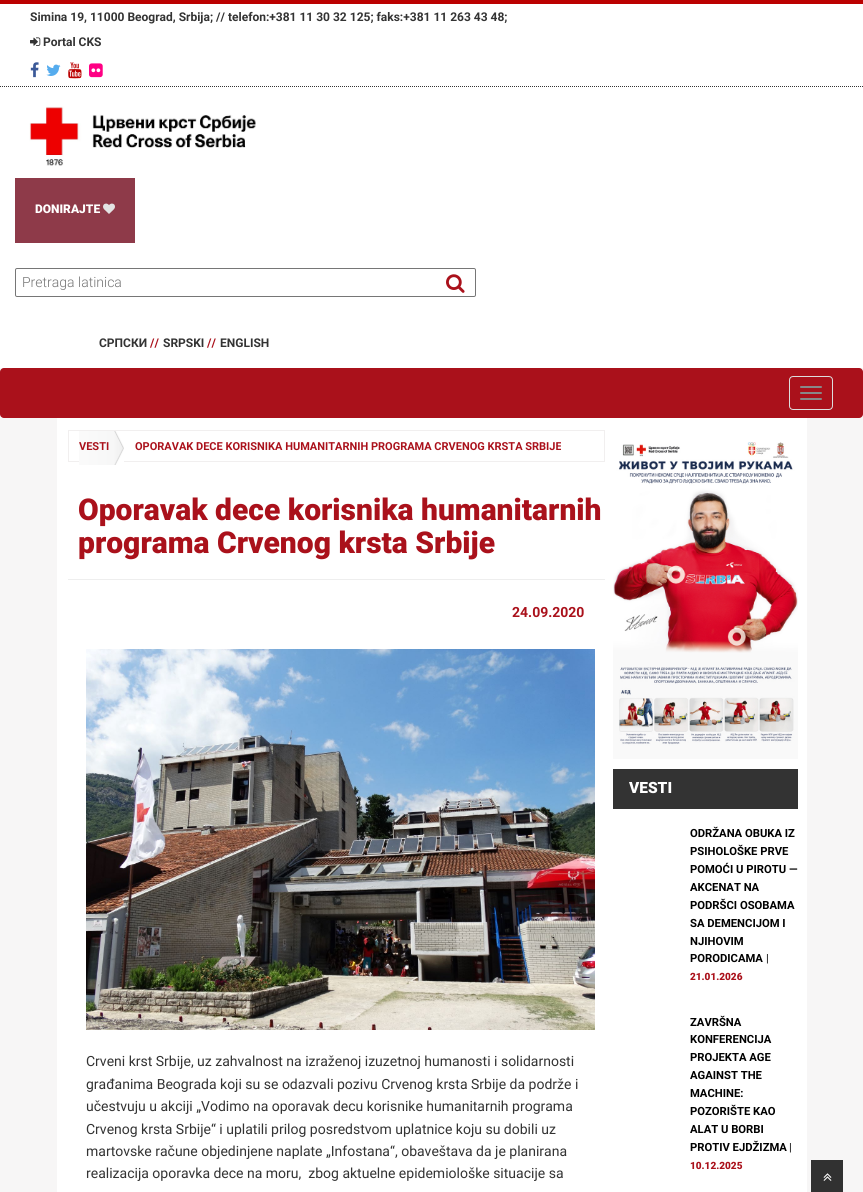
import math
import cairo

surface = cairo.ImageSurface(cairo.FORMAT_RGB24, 863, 1192)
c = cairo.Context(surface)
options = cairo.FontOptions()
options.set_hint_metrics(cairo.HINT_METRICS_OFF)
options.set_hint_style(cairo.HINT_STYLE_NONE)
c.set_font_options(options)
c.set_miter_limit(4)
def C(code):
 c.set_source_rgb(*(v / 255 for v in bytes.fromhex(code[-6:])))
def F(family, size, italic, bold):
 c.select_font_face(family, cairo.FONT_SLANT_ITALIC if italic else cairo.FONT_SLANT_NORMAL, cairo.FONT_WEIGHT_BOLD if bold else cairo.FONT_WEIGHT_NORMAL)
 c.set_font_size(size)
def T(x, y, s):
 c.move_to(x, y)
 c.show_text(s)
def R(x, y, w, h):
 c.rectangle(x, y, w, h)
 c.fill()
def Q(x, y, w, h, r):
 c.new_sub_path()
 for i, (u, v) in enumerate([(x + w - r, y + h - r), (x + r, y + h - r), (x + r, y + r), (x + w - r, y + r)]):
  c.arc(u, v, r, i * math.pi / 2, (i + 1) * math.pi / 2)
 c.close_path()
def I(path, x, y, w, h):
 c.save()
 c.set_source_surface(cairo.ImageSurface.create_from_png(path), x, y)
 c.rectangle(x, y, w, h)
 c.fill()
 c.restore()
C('f7f6f6')
c.paint()
C('ffffff')
R(0,4,863,364)
C('bb0000')
R(0,0,863,4)
c.new_path()
c.move_to(0,86.5)
c.line_to(863,86.5)
C('333333')
c.set_line_width(1)
c.set_dash([1,1])
c.stroke()
F('Roboto',12,0,1)
T(30,21,'Simina 19, 11000 Beograd, Srbija; // telefon:+381 11 30 32 125; faks:+381 11 263 43 48;')
I('1.png',30,37,11,9)
T(43,46,'Portal CKS')
I('2.png',30,62,9,16)
I('3.png',46,64,15,12)
I('4.png',68,62,14,17)
I('5.png',89,63,14,15)
I('6.png',29,106,227,60)
C('8e3a49')
R(15,178,120,65)
F('Roboto Black',12,0,0)
C('ffffff')
T(35,213,'DONIRAJTE')
I('7.png',103,203,12,11)
Q(15.5,268.5,460,28,1.5)
C('767676')
c.set_dash([])
c.stroke()
F('Roboto Light',14,0,0)
C('757575')
T(22,287,'Pretraga latinica')
I('8.png',446,274,19,19)
F('Roboto',12,0,1)
C('333333')
T(99,347,'СРПСКИ')
C('aa111b')
T(150,347,'//')
C('333333')
T(163,347,'SRPSKI')
C('aa111b')
T(207,347,'//')
C('333333')
T(220,347,'ENGLISH')
C('aa111b')
Q(0,368,863,50,4)
c.fill()
Q(789.5,376.5,43,33,3.5)
C('dddddd')
c.stroke()
C('888888')
Q(800,386,22,2,1)
c.fill()
Q(800,392,22,2,1)
c.fill()
Q(800,398,22,2,1)
c.fill()
C('ffffff')
R(57,418,750,774)
c.rectangle(68.5,430.5,536,31)
C('f1efef')
c.stroke()
I('9.png',79,431,45,34)
F('Roboto',11,0,1)
C('aa111b')
T(79,450,'VESTI')
T(135,450,'OPORAVAK DECE KORISNIKA HUMANITARNIH PROGRAMA CRVENOG KRSTA SRBIJE')
F('Roboto Black',30,0,0)
T(78,520,'Oporavak dece korisnika humanitarnih')
T(78,553,'programa Crvenog krsta Srbije')
C('eeeeee')
R(68,579,537,1)
F('Roboto',14,0,1)
C('aa111b')
T(512,617,'24.09.2020')
I('10.png',86,649,509,381)
F('Roboto',14,0,0)
C('333333')
T(86,1066,'Crveni krst Srbije, uz zahvalnost na izraženoj izuzetnoj humanosti i solidarnosti')
T(86,1089,'građanima Beograda koji su se odazvali pozivu Crvenog krsta Srbije da podrže i')
T(86,1111,'učestvuju u akciji „Vodimo na oporavak decu korisnike humanitarnih programa')
T(86,1134,'Crvenog krsta Srbije“ i uplatili prilog posredstvom uplatnice koju su dobili uz')
T(86,1156,'martovske račune objedinjene naplate „Infostana“, obaveštava da je planirana')
T(86,1178,'realizacija oporavka dece na moru,  zbog aktuelne epidemiološke situacije sa')
I('11.png',613,442,185,317)
R(613,769,185,40)
F('Roboto Black',15.5,0,0)
C('ffffff')
T(629,793,'VESTI')
F('Roboto',11.25,0,1)
C('000000')
T(690,837,'ODRŽANA OBUKA IZ')
T(690,855,'PSIHOLOŠKE PRVE')
T(690,873,'POMOĆI U PIROTU —')
T(690,891,'AKCENAT NA')
T(690,909,'PODRŠCI OSOBAMA')
T(690,927,'SA DEMENCIJOM I')
T(690,945,'NJIHOVIM')
T(690,962,'PORODICAMA')
F('Roboto Black',11.25,0,0)
C('333333')
T(766,962,'|')
F('Roboto Black',10,0,0)
C('aa111b')
T(690,980,'21.01.2026')
F('Roboto',11.25,0,1)
C('000000')
T(690,1026,'ZAVRŠNA')
T(690,1043,'KONFERENCIJA')
T(690,1061,'PROJEKTA AGE')
T(690,1079,'AGAINST THE')
T(690,1097,'MACHINE:')
T(690,1115,'POZORIŠTE KAO')
T(690,1133,'ALAT U BORBI')
T(690,1151,'PROTIV EJDŽIZMA')
F('Roboto Black',11.25,0,0)
C('333333')
T(789,1151,'|')
F('Roboto Black',10,0,0)
C('aa111b')
T(690,1169,'10.12.2025')
C('313131')
R(811,1160,32,32)
I('12.png',823,1173,9,8)
surface.write_to_png('o.png')
